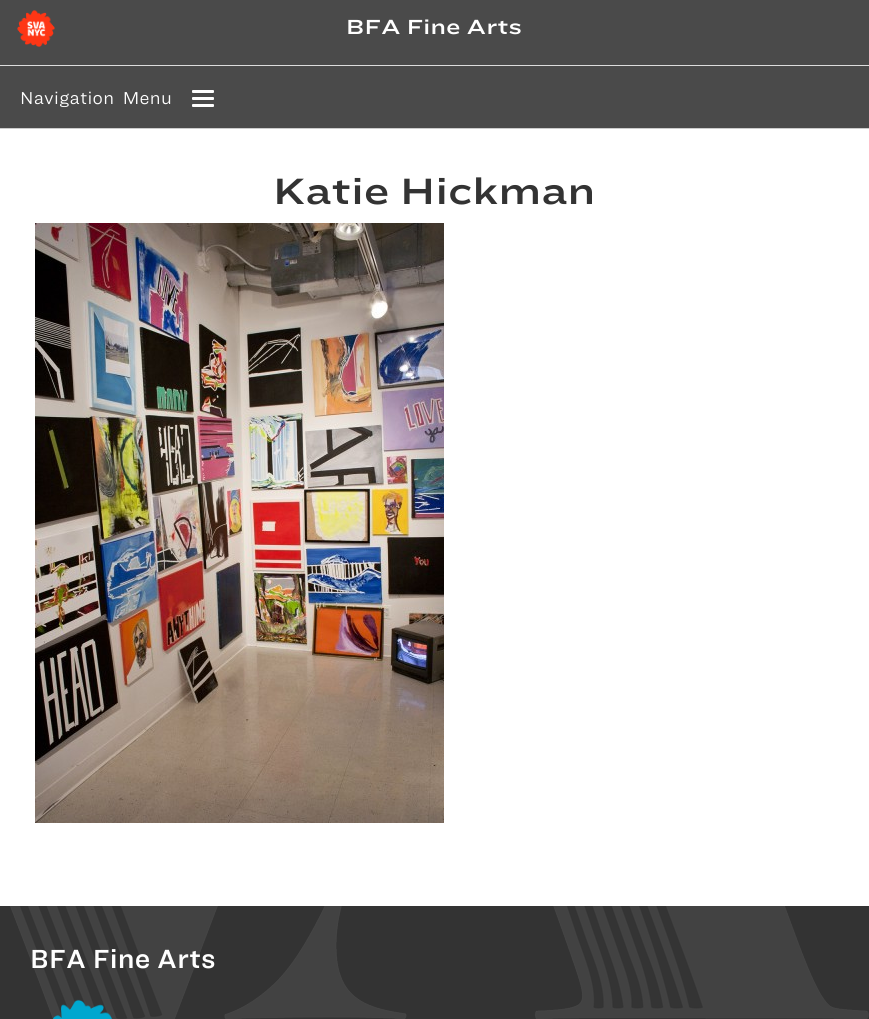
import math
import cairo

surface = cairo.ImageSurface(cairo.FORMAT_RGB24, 869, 1019)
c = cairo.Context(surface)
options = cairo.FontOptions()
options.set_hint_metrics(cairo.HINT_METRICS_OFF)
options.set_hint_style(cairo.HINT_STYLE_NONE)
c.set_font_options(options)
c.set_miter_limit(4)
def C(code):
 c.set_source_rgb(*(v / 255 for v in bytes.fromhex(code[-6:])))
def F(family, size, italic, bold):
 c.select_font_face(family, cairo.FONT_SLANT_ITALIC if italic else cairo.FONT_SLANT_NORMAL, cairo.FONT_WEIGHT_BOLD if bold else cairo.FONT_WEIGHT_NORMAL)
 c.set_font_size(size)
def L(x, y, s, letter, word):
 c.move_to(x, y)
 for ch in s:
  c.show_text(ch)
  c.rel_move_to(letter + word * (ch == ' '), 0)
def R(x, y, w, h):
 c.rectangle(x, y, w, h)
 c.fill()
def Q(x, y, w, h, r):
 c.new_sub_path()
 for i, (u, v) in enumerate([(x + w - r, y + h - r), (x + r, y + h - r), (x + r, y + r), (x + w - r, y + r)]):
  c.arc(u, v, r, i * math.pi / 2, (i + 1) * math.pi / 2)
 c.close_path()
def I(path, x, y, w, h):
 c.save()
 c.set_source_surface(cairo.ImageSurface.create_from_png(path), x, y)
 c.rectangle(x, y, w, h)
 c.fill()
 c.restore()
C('ffffff')
c.paint()
C('4a4a4a')
R(0,0,869,65)
I('1.png',17,10,38,37)
F('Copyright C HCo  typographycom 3 Light',19.5,0,0)
C('ffffff')
L(346,34,'BFA Fine Arts',.25,0)
C('dddddd')
R(0,65,869,1)
C('4a4a4a')
R(0,66,869,62)
C('cccccc')
R(0,128,869,1)
F('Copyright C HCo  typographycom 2 Light',16.5,0,0)
C('ffffff')
L(20,104,'Navigation Menu',.25,4)
Q(192,90,22,3,1)
c.fill()
Q(192,97,22,3,1)
c.fill()
Q(192,104,22,3,1)
c.fill()
F('Copyright C HCo  typographycom 3 Light',35,0,0)
C('333333')
L(273,204,'Katie Hickman',.25,0)
I('2.png',35,223,409,600)
R(0,906,869,113)
I('3.png',10,906,859,113)
F('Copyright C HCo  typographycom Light',25,0,0)
C('ffffff')
L(30,968,'BFA Fine Arts',.25,0)
I('4.png',53,999,59,20)
surface.write_to_png('o.png')
